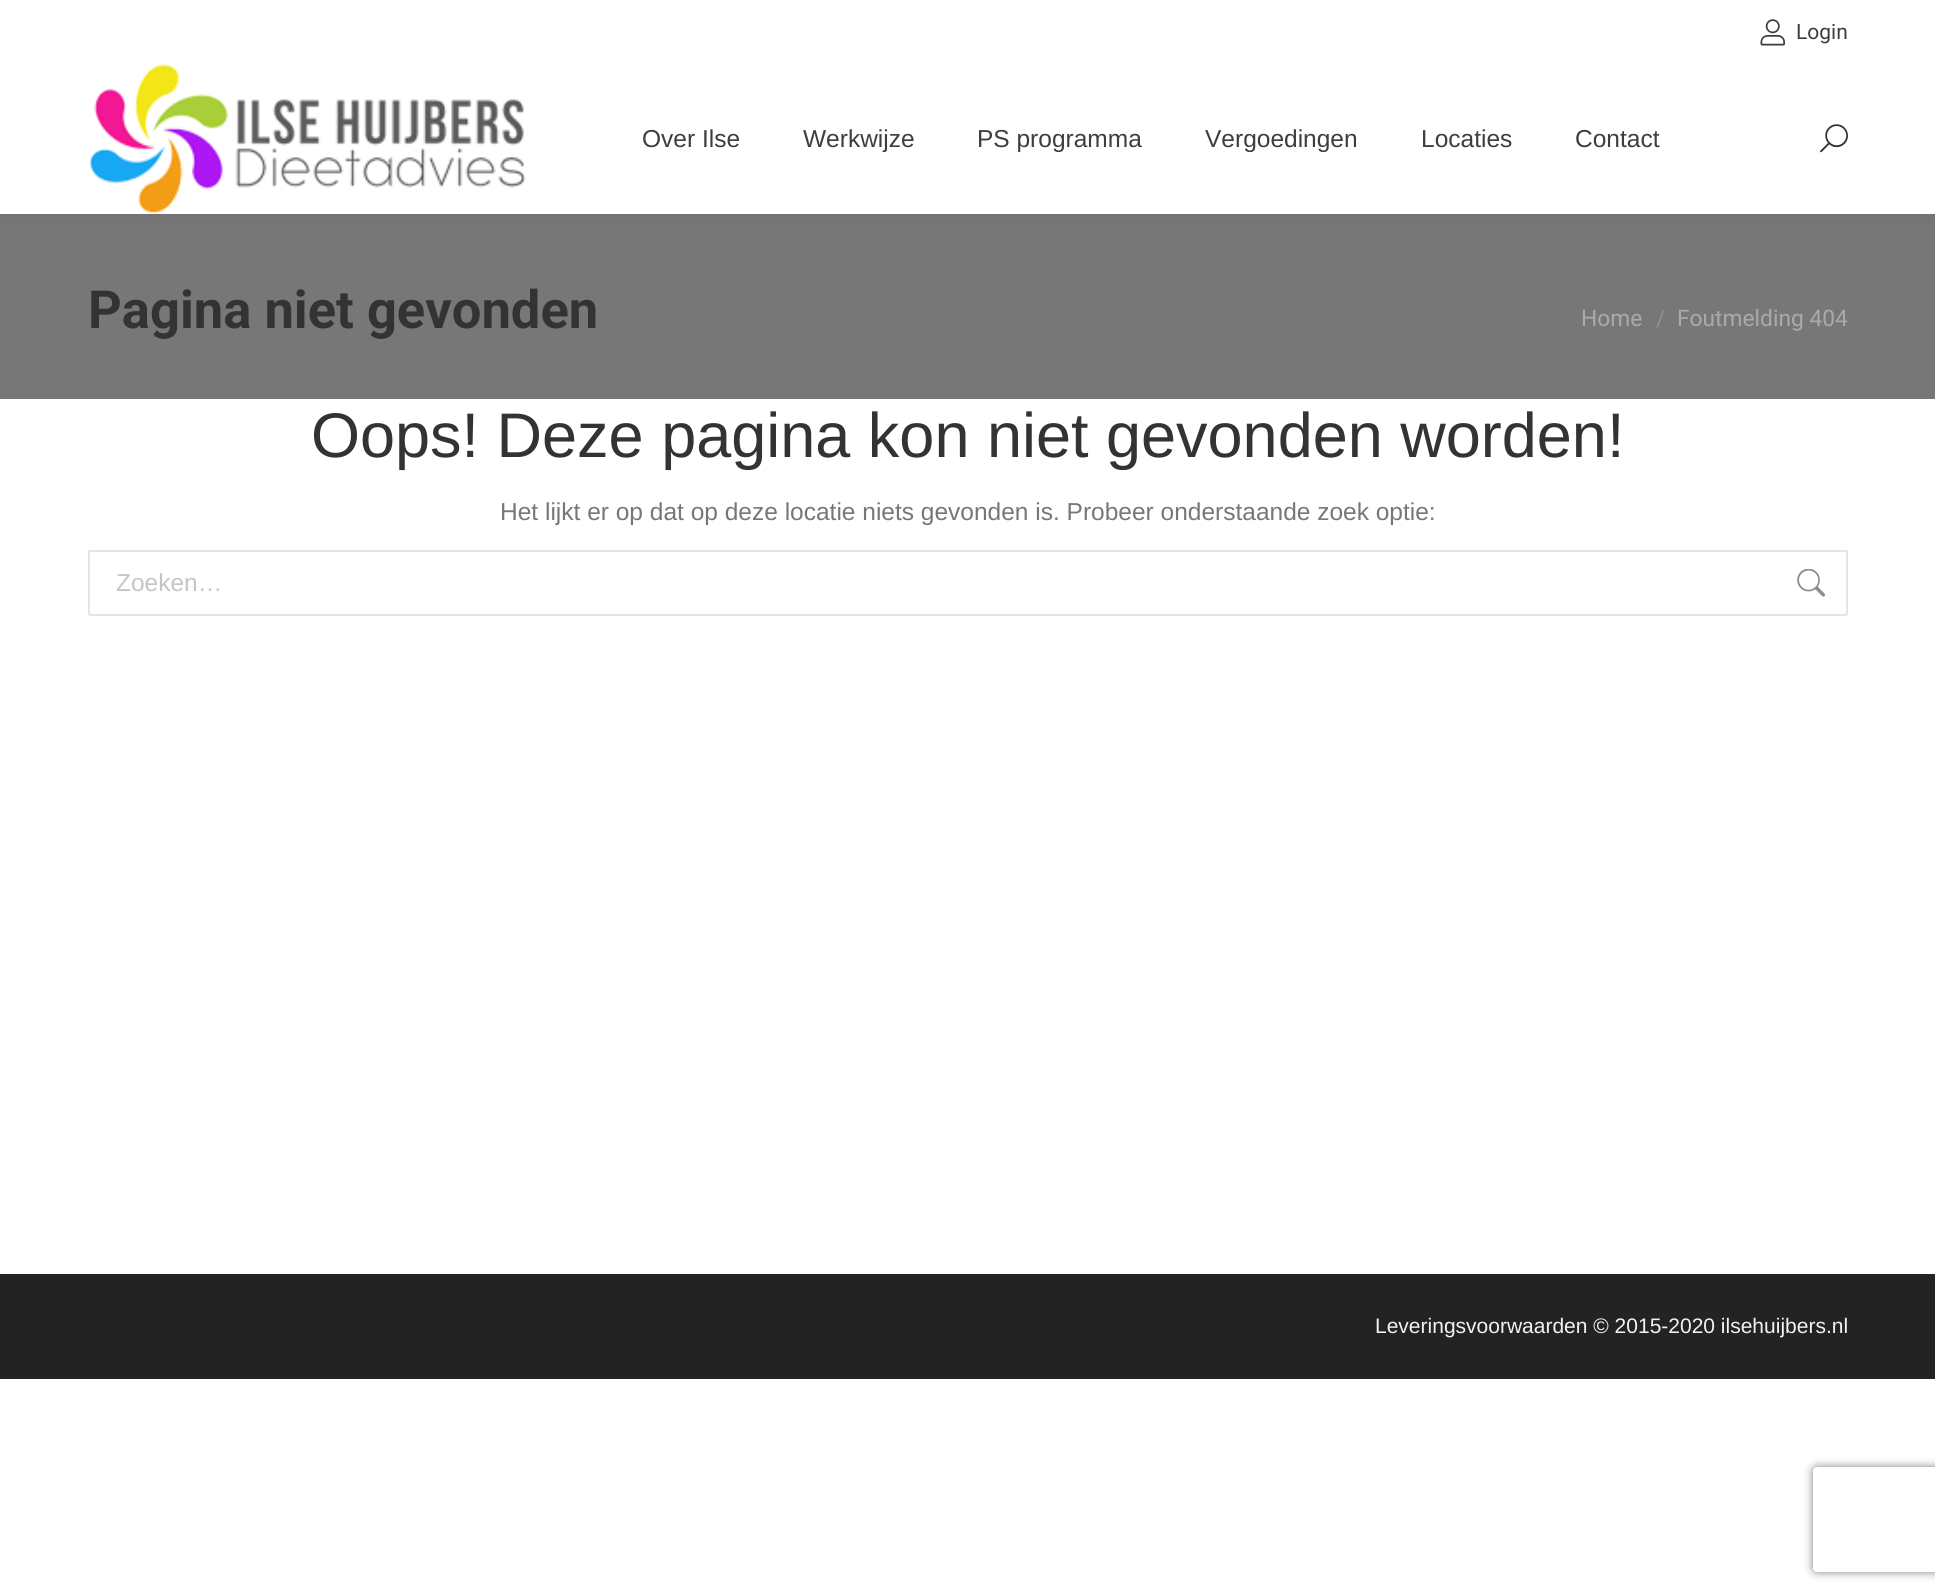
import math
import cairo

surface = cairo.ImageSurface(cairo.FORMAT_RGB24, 1935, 1596)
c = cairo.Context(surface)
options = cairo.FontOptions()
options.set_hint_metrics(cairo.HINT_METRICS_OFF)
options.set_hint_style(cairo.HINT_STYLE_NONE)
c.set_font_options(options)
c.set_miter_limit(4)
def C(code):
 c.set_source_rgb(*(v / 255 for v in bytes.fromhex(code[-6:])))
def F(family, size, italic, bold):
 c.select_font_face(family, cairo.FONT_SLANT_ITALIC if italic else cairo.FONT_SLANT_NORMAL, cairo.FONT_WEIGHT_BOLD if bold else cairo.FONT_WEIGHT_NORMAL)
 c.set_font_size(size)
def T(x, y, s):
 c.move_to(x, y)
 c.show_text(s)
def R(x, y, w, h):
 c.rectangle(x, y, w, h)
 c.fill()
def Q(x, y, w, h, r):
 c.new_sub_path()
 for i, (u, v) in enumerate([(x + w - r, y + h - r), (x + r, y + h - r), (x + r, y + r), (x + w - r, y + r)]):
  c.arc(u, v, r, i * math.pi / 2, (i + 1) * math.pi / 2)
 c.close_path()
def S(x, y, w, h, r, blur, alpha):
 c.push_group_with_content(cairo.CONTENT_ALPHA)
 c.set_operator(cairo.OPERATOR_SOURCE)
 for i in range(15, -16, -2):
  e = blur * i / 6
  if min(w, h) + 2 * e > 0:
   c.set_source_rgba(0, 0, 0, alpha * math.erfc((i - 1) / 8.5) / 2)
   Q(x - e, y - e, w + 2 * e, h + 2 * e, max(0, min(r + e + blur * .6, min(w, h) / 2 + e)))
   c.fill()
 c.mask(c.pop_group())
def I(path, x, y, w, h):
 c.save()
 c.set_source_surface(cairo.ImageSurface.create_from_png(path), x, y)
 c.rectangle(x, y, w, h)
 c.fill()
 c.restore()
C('ffffff')
c.paint()
C('777777')
R(0,214,1935,185)
C('000000')
S(-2,-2,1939,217,0,13,.07)
C('ffffff')
R(0,0,1935,214)
I('1.png',1760,19,25,27)
F('Roboto',21,0,0)
C('3e3e3e')
T(1796,39,'Login')
I('2.png',89,64,436,150)
F('Arimo',24.5,0,0)
T(642,147,'Over Ilse')
T(803,147,'Werkwijze')
T(977,147,'PS programma')
T(1205,147,'Vergoedingen')
T(1421,147,'Locaties')
T(1575,147,'Contact')
I('3.png',1820,124,28,29)
F('Roboto',52.5,0,1)
C('333333')
T(88,328,'Pagina niet gevonden')
F('Roboto',22.75,0,0)
C('aaaaaa')
T(1581,326,'Home')
C('919191')
T(1656,326,'/')
C('aaaaaa')
T(1677,326,'Foutmelding 404')
F('Arimo',63,0,0)
C('333333')
T(311,457,'Oops! Deze pagina kon niet gevonden worden!')
F('Arimo',24.5,0,0)
C('777777')
T(500,520,'Het lijkt er op dat op deze locatie niets gevonden is. Probeer onderstaande zoek optie:')
Q(89,551,1758,64,1)
C('e5e5e5')
c.stroke()
C('c4c5c9')
T(116,591,'Zoeken…')
I('4.png',1797,569,28,28)
C('232323')
R(0,1274,1935,105)
F('Arimo',21,0,0)
C('f2f2f2')
T(1375,1333,'Leveringsvoorwaarden © 2015-2020 ilsehuijbers.nl')
c.save()
c.set_fill_rule(cairo.FILL_RULE_EVEN_ODD)
c.new_path()
c.move_to(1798,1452)
c.line_to(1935,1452)
c.line_to(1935,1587)
c.line_to(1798,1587)
c.close_path()
c.move_to(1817,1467)
c.line_to(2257,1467)
c.curve_to(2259,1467,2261,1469,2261,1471)
c.line_to(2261,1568)
c.curve_to(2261,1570,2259,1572,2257,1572)
c.line_to(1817,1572)
c.curve_to(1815,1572,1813,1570,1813,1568)
c.line_to(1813,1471)
c.curve_to(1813,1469,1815,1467,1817,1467)
c.close_path()
c.clip()
C('808080')
S(1813,1467,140,105,4,4.5,1)
c.restore()
surface.write_to_png('o.png')
